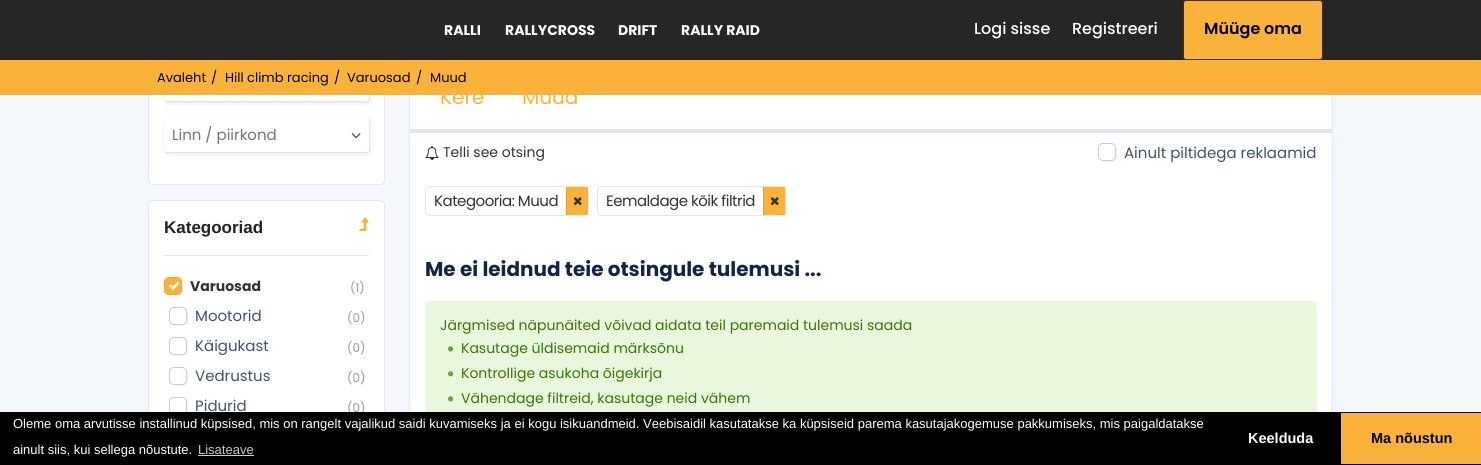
import math
import cairo

surface = cairo.ImageSurface(cairo.FORMAT_RGB24, 1481, 465)
c = cairo.Context(surface)
options = cairo.FontOptions()
options.set_hint_metrics(cairo.HINT_METRICS_OFF)
options.set_hint_style(cairo.HINT_STYLE_NONE)
c.set_font_options(options)
c.set_miter_limit(4)
def C(code):
 c.set_source_rgb(*(v / 255 for v in bytes.fromhex(code[-6:])))
def F(family, size, italic, bold):
 c.select_font_face(family, cairo.FONT_SLANT_ITALIC if italic else cairo.FONT_SLANT_NORMAL, cairo.FONT_WEIGHT_BOLD if bold else cairo.FONT_WEIGHT_NORMAL)
 c.set_font_size(size)
def T(x, y, s):
 c.move_to(x, y)
 c.show_text(s)
def L(x, y, s, letter, word):
 c.move_to(x, y)
 for ch in s:
  c.show_text(ch)
  c.rel_move_to(letter + word * (ch == ' '), 0)
def R(x, y, w, h):
 c.rectangle(x, y, w, h)
 c.fill()
def Q(x, y, w, h, r):
 c.new_sub_path()
 for i, (u, v) in enumerate([(x + w - r, y + h - r), (x + r, y + h - r), (x + r, y + r), (x + w - r, y + r)]):
  c.arc(u, v, r, i * math.pi / 2, (i + 1) * math.pi / 2)
 c.close_path()
def S(x, y, w, h, r, blur, alpha):
 c.push_group_with_content(cairo.CONTENT_ALPHA)
 c.set_operator(cairo.OPERATOR_SOURCE)
 for i in range(15, -16, -2):
  e = blur * i / 6
  if min(w, h) + 2 * e > 0:
   c.set_source_rgba(0, 0, 0, alpha * math.erfc((i - 1) / 8.5) / 2)
   Q(x - e, y - e, w + 2 * e, h + 2 * e, max(0, min(r + e + blur * .6, min(w, h) / 2 + e)))
   c.fill()
 c.mask(c.pop_group())
def I(path, x, y, w, h):
 c.save()
 c.set_source_surface(cairo.ImageSurface.create_from_png(path), x, y)
 c.rectangle(x, y, w, h)
 c.fill()
 c.restore()
C('f4f7fb')
c.paint()
C('ffffff')
Q(148,-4,237,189,5)
c.fill()
Q(148.5,-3.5,236,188,4.5)
c.set_source_rgba(0,0,0,0.1)
c.set_line_width(1)
c.stroke()
C('ffffff')
R(410,95,922,317)
c.rectangle(409.5,-.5,923,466)
C('e5e5e5')
c.stroke()
C('262626')
R(0,0,1481,60)
F('Poppins',14,0,1)
C('ffffff')
T(444,35,'RALLI')
T(505,35,'RALLYCROSS')
T(618,35,'DRIFT')
T(681,35,'RALLY RAID')
F('Poppins Medium',16,0,0)
T(974,34,'Logi sisse')
T(1072,34,'Registreeri')
C('fab23a')
Q(1183.5,.5,139,59,2.5)
c.fill_preserve()
C('333333')
c.stroke()
F('Poppins SemiBold',16,0,0)
C('000000')
T(1204,34,'Müüge oma')
C('000000')
S(165,69,205,34,3,2.5,.1)
Q(164.25,67.25,205.5,34.5,3.75)
c.set_source_rgba(0,0,0,0.1)
c.set_line_width(.5)
c.stroke()
C('ffffff')
Q(164,67,205,34,3)
c.fill()
C('fab23a')
R(0,60,1481,35)
F('Poppins',13,0,0)
C('000000')
T(157,82,'Avaleht')
T(211,82,'/')
T(225,82,'Hill climb racing')
T(334,82,'/')
T(347,82,'Varuosad')
T(416,82,'/')
T(430,82,'Muud')
C('000000')
S(165,120,205,34,3,2.5,.1)
Q(164.25,118.25,205.5,34.5,3.75)
c.set_source_rgba(0,0,0,0.1)
c.stroke()
C('ffffff')
Q(164,118,205,34,3)
c.fill()
F('Poppins',15,0,0)
C('757575')
T(172,140,'Linn / piirkond')
I('1.png',351,133,10,6)
C('ffffff')
Q(148,200,237,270,5)
c.fill()
Q(148.5,200.5,236,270,4.5)
c.set_source_rgba(0,0,0,0.1)
c.set_line_width(1)
c.stroke()
C('e6e6e6')
R(164,255,205,1)
F('Liberation Sans',17,0,1)
C('222222')
T(164,233,'Kategooriad')
I('2.png',359,217,10,14)
C('000000')
S(165,278,18,18,5,.5,.06)
C('fab23a')
Q(164,277,18,18,5)
c.fill()
c.rectangle(164.5,277.5,17,17)
c.set_source_rgba(0,0,0,0.05)
c.stroke()
F('Poppins',14,0,1)
C('333333')
T(190,291,'Varuosad')
F('Poppins',12,0,0)
C('999999')
T(350,292,'(1)')
I('3.png',168,282,12,8)
c.save()
c.set_fill_rule(cairo.FILL_RULE_EVEN_ODD)
c.new_path()
c.move_to(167,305)
c.line_to(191,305)
c.line_to(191,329)
c.line_to(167,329)
c.close_path()
c.move_to(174,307)
c.line_to(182,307)
c.curve_to(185,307,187,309,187,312)
c.line_to(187,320)
c.curve_to(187,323,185,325,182,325)
c.line_to(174,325)
c.curve_to(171,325,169,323,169,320)
c.line_to(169,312)
c.curve_to(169,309,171,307,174,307)
c.close_path()
c.clip()
C('000000')
S(170,308,18,18,5,.5,.06)
c.restore()
Q(169.5,307.5,17,17,4.5)
C('cccccc')
c.stroke()
F('Poppins',15,0,0)
C('435269')
T(195,321,'Mootorid')
F('Poppins',12,0,0)
C('999999')
T(347,322,'(0)')
c.save()
c.set_fill_rule(cairo.FILL_RULE_EVEN_ODD)
c.new_path()
c.move_to(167,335)
c.line_to(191,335)
c.line_to(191,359)
c.line_to(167,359)
c.close_path()
c.move_to(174,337)
c.line_to(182,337)
c.curve_to(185,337,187,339,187,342)
c.line_to(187,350)
c.curve_to(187,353,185,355,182,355)
c.line_to(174,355)
c.curve_to(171,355,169,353,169,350)
c.line_to(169,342)
c.curve_to(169,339,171,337,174,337)
c.close_path()
c.clip()
C('000000')
S(170,338,18,18,5,.5,.06)
c.restore()
Q(169.5,337.5,17,17,4.5)
C('cccccc')
c.stroke()
F('Poppins',15,0,0)
C('435269')
T(195,351,'Käigukast')
F('Poppins',12,0,0)
C('999999')
T(347,352,'(0)')
c.save()
c.set_fill_rule(cairo.FILL_RULE_EVEN_ODD)
c.new_path()
c.move_to(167,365)
c.line_to(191,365)
c.line_to(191,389)
c.line_to(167,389)
c.close_path()
c.move_to(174,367)
c.line_to(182,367)
c.curve_to(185,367,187,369,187,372)
c.line_to(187,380)
c.curve_to(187,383,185,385,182,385)
c.line_to(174,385)
c.curve_to(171,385,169,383,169,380)
c.line_to(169,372)
c.curve_to(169,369,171,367,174,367)
c.close_path()
c.clip()
C('000000')
S(170,368,18,18,5,.5,.06)
c.restore()
Q(169.5,367.5,17,17,4.5)
C('cccccc')
c.stroke()
F('Poppins',15,0,0)
C('435269')
T(195,381,'Vedrustus')
F('Poppins',12,0,0)
C('999999')
T(347,382,'(0)')
c.save()
c.set_fill_rule(cairo.FILL_RULE_EVEN_ODD)
c.new_path()
c.move_to(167,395)
c.line_to(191,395)
c.line_to(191,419)
c.line_to(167,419)
c.close_path()
c.move_to(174,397)
c.line_to(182,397)
c.curve_to(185,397,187,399,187,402)
c.line_to(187,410)
c.curve_to(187,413,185,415,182,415)
c.line_to(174,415)
c.curve_to(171,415,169,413,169,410)
c.line_to(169,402)
c.curve_to(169,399,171,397,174,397)
c.close_path()
c.clip()
C('000000')
S(170,398,18,18,5,.5,.06)
c.restore()
Q(169.5,397.5,17,17,4.5)
C('cccccc')
c.stroke()
F('Poppins',15,0,0)
C('435269')
T(195,411,'Pidurid')
F('Poppins',12,0,0)
C('999999')
T(347,412,'(0)')
F('Poppins',20,0,0)
C('fab23a')
T(440,104,'Kere')
T(522,104,'Muud')
C('dde6f1')
R(410,129,922,4)
I('4.png',425,146,14,14)
F('Poppins',14,0,0)
C('333333')
T(443,157,'Telli see otsing')
c.save()
c.set_fill_rule(cairo.FILL_RULE_EVEN_ODD)
c.new_path()
c.move_to(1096,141)
c.line_to(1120,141)
c.line_to(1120,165)
c.line_to(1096,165)
c.close_path()
c.move_to(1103,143)
c.line_to(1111,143)
c.curve_to(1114,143,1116,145,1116,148)
c.line_to(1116,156)
c.curve_to(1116,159,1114,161,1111,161)
c.line_to(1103,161)
c.curve_to(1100,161,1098,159,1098,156)
c.line_to(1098,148)
c.curve_to(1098,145,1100,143,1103,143)
c.close_path()
c.clip()
C('000000')
S(1099,144,18,18,5,.5,.06)
c.restore()
Q(1098.5,143.5,17,17,4.5)
C('cccccc')
c.stroke()
F('Poppins',15,0,0)
C('435269')
T(1124,158,'Ainult piltidega reklaamid')
Q(425.5,186.5,163,29,4.5)
C('e6e6e6')
c.stroke()
C('333333')
L(434,206,'Kategooria: Muud',-.5,0)
C('fab23a')
R(567,187,21,28)
C('e1a034')
R(566,187,1,28)
I('5.png',573,197,9,9)
Q(597.5,186.5,188,29,4.5)
C('e6e6e6')
c.stroke()
C('333333')
L(606,206,'Eemaldage kõik filtrid',-.5,0)
C('fab23a')
R(764,187,21,28)
C('e1a034')
R(763,187,1,28)
I('5.png',770,197,9,9)
F('Poppins',20,0,1)
C('142542')
T(425,276,'Me ei leidnud teie otsingule tulemusi ...')
C('e9f7df')
Q(425,301,892,151,5)
c.fill()
F('Poppins',14,0,0)
C('377800')
T(440,330,'Järgmised näpunäited võivad aidata teil paremaid tulemusi saada')
I('6.png',448,346,6,6)
T(461,353,'Kasutage üldisemaid märksõnu')
I('6.png',448,371,6,6)
T(461,378,'Kontrollige asukoha õigekirja')
I('6.png',448,396,6,6)
T(461,403,'Vähendage filtreid, kasutage neid vähem')
C('000000')
R(0,412,1481,53)
F('Liberation Sans',13,0,0)
C('ffffff')
T(13,428,'Oleme oma arvutisse installinud küpsised, mis on rangelt vajalikud saidi kuvamiseks ja ei kogu isikuandmeid. Veebisaidil kasutatakse ka küpsiseid parema kasutajakogemuse pakkumiseks, mis paigaldatakse')
T(13,454,'ainult siis, kui sellega nõustute.')
C('cccccc')
T(198,454,'Lisateave')
R(198,455,56,1)
F('Liberation Sans',14.5,0,1)
C('ffffff')
T(1248,443,'Keelduda')
C('fab23a')
R(1341,413,140,51)
C('000000')
T(1371,443,'Ma nõustun')
surface.write_to_png('o.png')
